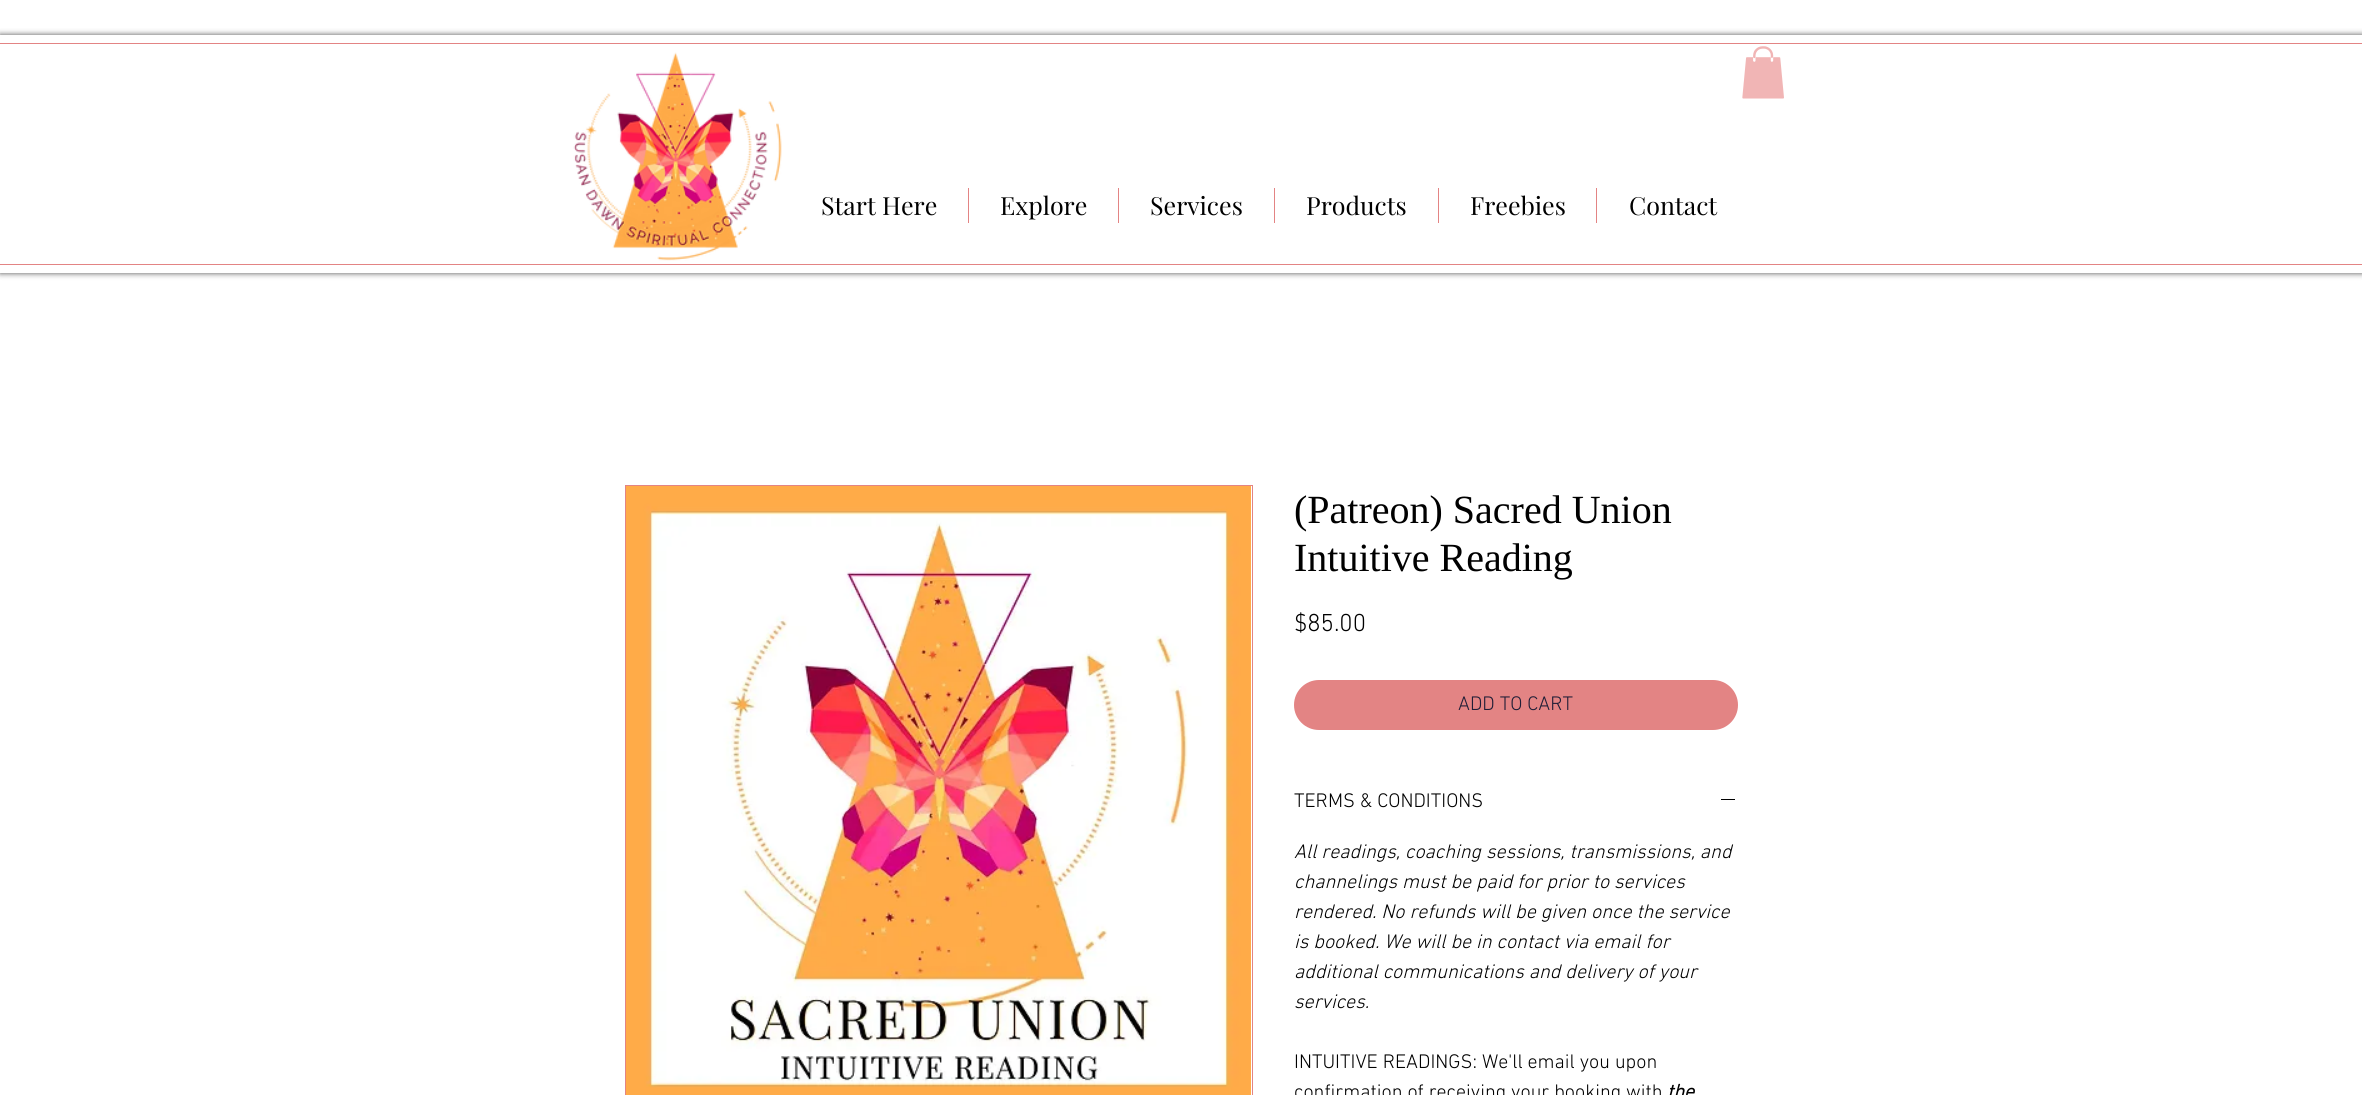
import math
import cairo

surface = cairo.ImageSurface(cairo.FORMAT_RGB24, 2362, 1095)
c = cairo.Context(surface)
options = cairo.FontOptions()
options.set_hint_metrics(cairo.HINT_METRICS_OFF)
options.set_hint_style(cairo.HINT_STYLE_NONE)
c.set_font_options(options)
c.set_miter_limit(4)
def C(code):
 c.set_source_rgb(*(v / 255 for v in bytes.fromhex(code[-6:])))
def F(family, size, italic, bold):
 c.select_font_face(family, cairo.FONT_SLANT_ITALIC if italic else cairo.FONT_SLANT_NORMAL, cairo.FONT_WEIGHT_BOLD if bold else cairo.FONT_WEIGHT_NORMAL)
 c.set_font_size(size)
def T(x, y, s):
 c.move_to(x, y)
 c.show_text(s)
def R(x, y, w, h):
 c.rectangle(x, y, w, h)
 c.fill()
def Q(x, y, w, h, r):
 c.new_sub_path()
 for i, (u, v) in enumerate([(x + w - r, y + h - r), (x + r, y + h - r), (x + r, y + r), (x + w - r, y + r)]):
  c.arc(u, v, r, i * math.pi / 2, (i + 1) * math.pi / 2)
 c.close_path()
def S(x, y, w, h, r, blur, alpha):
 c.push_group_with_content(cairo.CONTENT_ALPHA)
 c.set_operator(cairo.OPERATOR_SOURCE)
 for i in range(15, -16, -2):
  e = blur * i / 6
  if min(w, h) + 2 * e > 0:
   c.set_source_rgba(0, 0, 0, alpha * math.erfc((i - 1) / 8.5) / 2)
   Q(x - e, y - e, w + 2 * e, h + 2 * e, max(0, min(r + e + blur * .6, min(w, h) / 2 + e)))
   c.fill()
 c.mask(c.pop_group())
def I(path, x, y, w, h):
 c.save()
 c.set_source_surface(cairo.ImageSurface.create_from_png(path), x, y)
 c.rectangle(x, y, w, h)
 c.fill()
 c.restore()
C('ffffff')
c.paint()
c.save()
c.set_fill_rule(cairo.FILL_RULE_EVEN_ODD)
c.new_path()
c.move_to(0,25)
c.line_to(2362,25)
c.line_to(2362,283)
c.line_to(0,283)
c.close_path()
c.move_to(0,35)
c.line_to(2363,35)
c.line_to(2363,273)
c.line_to(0,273)
c.close_path()
c.clip()
C('000000')
S(0,35,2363,238,0,3,.7)
c.restore()
c.set_source_rgba(1,1,1,0.75)
R(0,272,2362,1)
C('e38484')
R(0,43,2362,1)
R(0,264,2362,1)
I('1.png',573,52,209,209)
F('Playfair Display',25,0,0)
C('000000')
T(821,215,'Start Here')
C('e38484')
R(968,188,1,35)
C('000000')
T(1000,215,'Explore')
C('e38484')
R(1118,188,1,35)
C('000000')
T(1150,215,'Services')
C('e38484')
R(1274,188,1,35)
C('000000')
T(1306,215,'Products')
C('e38484')
R(1438,188,1,35)
C('000000')
T(1470,215,'Freebies')
C('e38484')
R(1596,188,1,35)
C('000000')
T(1629,215,'Contact')
I('2.png',1742,46,42,53)
c.rectangle(625.5,485.5,627,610)
C('e38484')
c.set_line_width(1)
c.stroke()
I('3.png',626,486,625,609)
F('Liberation Serif',40,0,0)
C('000000')
T(1294,523,'(Patreon) Sacred Union')
T(1294,571,'Intuitive Reading')
F('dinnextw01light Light',25,0,0)
T(1294,631,'$85.00')
C('e38484')
Q(1294,680,444,50,25)
c.fill()
F('dinnextw01light Light',20,0,0)
C('201e37')
T(1458,710,'ADD TO CART')
C('000000')
T(1294,807,'TERMS & CONDITIONS')
R(1721,799,14,1)
F('dinnextw01light Light',20,1,0)
T(1294,858,'All readings, coaching sessions, transmissions, and')
T(1294,888,'channelings must be paid for prior to services')
T(1294,918,'rendered. No refunds will be given once the service')
T(1294,948,'is booked. We will be in contact via email for')
T(1294,978,'additional communications and delivery of your')
T(1294,1008,'services.')
F('dinnextw01light Light',20,0,0)
T(1294,1068,'INTUITIVE READINGS: We\'ll email you upon')
T(1294,1098,'confirmation of receiving your booking with')
F('dinnextw01light',20,1,1)
T(1667,1098,'the')
surface.write_to_png('o.png')
